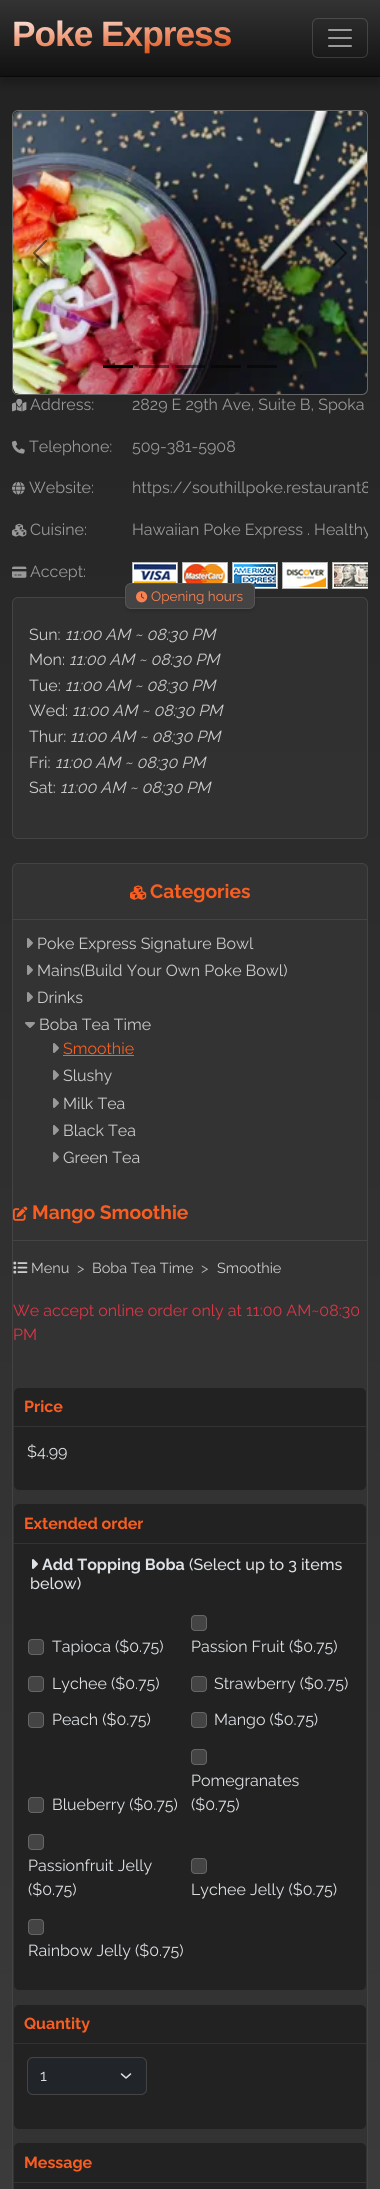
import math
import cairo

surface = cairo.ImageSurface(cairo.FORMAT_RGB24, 380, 2189)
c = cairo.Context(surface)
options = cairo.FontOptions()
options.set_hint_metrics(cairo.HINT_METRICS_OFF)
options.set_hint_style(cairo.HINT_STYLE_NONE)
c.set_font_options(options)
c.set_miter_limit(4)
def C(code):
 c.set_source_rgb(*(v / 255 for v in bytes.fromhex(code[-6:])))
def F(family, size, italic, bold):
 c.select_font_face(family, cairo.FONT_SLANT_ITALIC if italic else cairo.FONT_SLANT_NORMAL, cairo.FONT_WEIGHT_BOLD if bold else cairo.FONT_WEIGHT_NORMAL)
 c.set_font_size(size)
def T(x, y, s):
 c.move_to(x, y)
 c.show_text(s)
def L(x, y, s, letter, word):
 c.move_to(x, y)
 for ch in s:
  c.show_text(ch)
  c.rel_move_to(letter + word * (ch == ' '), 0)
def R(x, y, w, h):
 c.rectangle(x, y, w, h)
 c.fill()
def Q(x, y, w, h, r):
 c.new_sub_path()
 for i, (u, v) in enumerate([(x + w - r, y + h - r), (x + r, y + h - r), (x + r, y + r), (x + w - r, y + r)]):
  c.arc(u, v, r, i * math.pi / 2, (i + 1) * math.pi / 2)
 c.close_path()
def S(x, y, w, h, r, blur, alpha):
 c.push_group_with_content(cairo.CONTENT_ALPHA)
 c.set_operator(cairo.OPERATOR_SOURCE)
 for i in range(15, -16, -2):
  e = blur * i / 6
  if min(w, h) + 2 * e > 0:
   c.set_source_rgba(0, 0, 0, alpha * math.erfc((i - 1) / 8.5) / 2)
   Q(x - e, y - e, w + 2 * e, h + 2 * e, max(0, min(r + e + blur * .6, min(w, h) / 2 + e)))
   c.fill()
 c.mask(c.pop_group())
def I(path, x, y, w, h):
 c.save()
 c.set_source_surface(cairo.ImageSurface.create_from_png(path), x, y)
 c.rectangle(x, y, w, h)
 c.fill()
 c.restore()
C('ffffff')
c.paint()
gradient = cairo.LinearGradient(190,0,190,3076)
gradient.add_color_stop_rgba(0,0.133,0.133,0.133,1)
gradient.add_color_stop_rgba(1,0.271,0.271,0.271,1)
c.set_source(gradient)
R(0,77,380,2112)
C('000000')
S(0,8,380,77,0,4,.2)
gradient = cairo.LinearGradient(190,0,190,76)
gradient.add_color_stop_rgba(0,0.2,0.2,0.2,1)
gradient.add_color_stop_rgba(1,0.067,0.067,0.067,1)
c.set_source(gradient)
R(0,0,380,76)
C('090909')
R(0,76,380,1)
F('Liberation Sans',35.25,0,1)
gradient = cairo.LinearGradient(118,-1.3,125,77)
gradient.add_color_stop_rgba(.1,0.996,0.929,0.906,1)
gradient.add_color_stop_rgba(.8,0.878,0.267,0.024,1)
c.set_source(gradient)
L(12,46,'Poke Express',-1,0)
Q(312.5,18.5,55,39,5.5)
c.set_source_rgba(1,1,1,0.15)
c.set_line_width(1)
c.stroke()
I('1.png',328,29,24,18)
Q(12.5,110.5,355,284,5.5)
C('666666')
c.stroke()
I('2.png',13,111,354,283)
I('3.png',33,240,14,26)
I('4.png',333,240,14,26)
C('000000')
R(103,365,30,3)
c.set_source_rgba(0,0,0,0.5)
R(139,365,30,3)
R(175,365,30,3)
R(211,365,30,3)
R(247,365,30,3)
I('5.png',12,398,15,14)
F('Raleway',16,0,0)
C('999999')
T(30,410,'Address:')
T(132,410,'2829 E 29th Ave, Suite B, Spoka')
I('6.png',12,440,13,14)
T(29,452,'Telephone:')
T(132,452,'509-381-5908')
I('7.png',12,481,13,14)
T(29,493,'Website:')
c.save()
c.rectangle(12,395,356,202)
c.clip()
T(132,493,'https://southillpoke.restaurant8')
c.restore()
I('8.png',12,523,15,14)
T(30,535,'Cuisine:')
c.save()
c.rectangle(12,395,356,202)
c.clip()
T(132,535,'Hawaiian Poke Express . Healthy')
c.restore()
I('9.png',12,566,15,12)
T(30,577,'Accept:')
I('10.png',132,562,46,21)
I('11.png',182,562,46,21)
I('12.png',232,562,46,27)
I('13.png',282,562,46,27)
I('14.png',332,562,36,27)
c.set_source_rgba(0.2,0.2,0.2,0.8)
Q(12.5,597.5,355,241,5.5)
c.fill_preserve()
C('444444')
c.stroke()
C('000000')
S(125,586,130,26,6,1.5,.1)
C('444444')
Q(125.5,583.5,129,25,5.5)
c.fill_preserve()
C('555555')
c.stroke()
I('15.png',136,591,12,12)
F('Raleway',13.5,0,0)
C('fa8252')
T(151,601,'Opening hours')
F('Raleway',16,0,0)
C('cccccc')
T(29,640,'Sun:')
F('Raleway',16,1,0)
T(65,640,'11:00 AM ~ 08:30 PM')
F('Raleway',16,0,0)
T(29,665,'Mon:')
F('Raleway',16,1,0)
T(69,665,'11:00 AM ~ 08:30 PM')
F('Raleway',16,0,0)
T(29,691,'Tue:')
F('Raleway',16,1,0)
T(65,691,'11:00 AM ~ 08:30 PM')
F('Raleway',16,0,0)
T(29,716,'Wed:')
F('Raleway',16,1,0)
T(72,716,'11:00 AM ~ 08:30 PM')
F('Raleway',16,0,0)
T(29,742,'Thur:')
F('Raleway',16,1,0)
T(70,742,'11:00 AM ~ 08:30 PM')
F('Raleway',16,0,0)
T(29,768,'Fri:')
F('Raleway',16,1,0)
T(55,768,'11:00 AM ~ 08:30 PM')
F('Raleway',16,0,0)
T(29,793,'Sat:')
F('Raleway',16,1,0)
T(60,793,'11:00 AM ~ 08:30 PM')
C('333333')
Q(12.5,863.5,355,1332,5.5)
c.fill_preserve()
C('444444')
c.stroke()
R(13,919,354,1)
I('16.png',130,885,17,15)
F('Raleway',19.25,0,1)
C('f95e20')
T(150,898,'Categories')
I('17.png',27,938,6,10)
F('Raleway',16,0,0)
C('cccccc')
T(37,949,'Poke Express Signature Bowl')
I('17.png',27,965,6,10)
T(37,976,'Mains(Build Your Own Poke Bowl)')
I('17.png',27,992,6,10)
T(37,1003,'Drinks')
I('18.png',25,1022,10,6)
T(39,1030,'Boba Tea Time')
I('17.png',53,1043,6,10)
C('f95e20')
T(63,1054,'Smoothie')
R(63,1055,71,1)
I('17.png',53,1070,6,10)
C('cccccc')
T(63,1081,'Slushy')
I('17.png',53,1098,6,10)
T(63,1109,'Milk Tea')
I('17.png',53,1125,6,10)
T(63,1136,'Black Tea')
I('17.png',53,1152,6,10)
T(63,1163,'Green Tea')
C('444444')
R(13,1240,354,1)
I('19.png',13,1206,15,15)
F('Raleway',19.25,0,1)
C('f95e20')
T(32,1219,'Mango Smoothie')
I('20.png',13,1261,15,13)
F('Raleway',14.5,0,0)
C('cccccc')
T(31,1273,'Menu')
C('b3b6b9')
T(77,1273,'>')
C('cccccc')
T(92,1273,'Boba Tea Time')
C('b3b6b9')
T(201,1273,'>')
C('cccccc')
T(217,1273,'Smoothie')
F('Raleway',16,0,0)
C('dc3545')
T(13,1316,'We accept online order only at 11:00 AM~08:30')
T(13,1340,'PM')
C('222222')
Q(13.5,1387.5,353,103,5.5)
c.fill_preserve()
C('333333')
c.stroke()
R(14,1426,352,1)
F('Raleway',16,0,1)
C('f95e20')
T(24,1412,'Price')
F('Raleway',16,0,0)
C('dee2e6')
T(27,1457,'$4.99')
C('222222')
Q(13.5,1503.5,353,487,5.5)
c.fill_preserve()
C('333333')
c.stroke()
R(14,1543,352,1)
F('Raleway',16,0,1)
C('f95e20')
T(24,1529,'Extended order')
I('21.png',32,1559,6,10)
C('dee2e6')
T(42,1570,'Add Topping Boba')
F('Raleway Medium',16,0,0)
T(189,1570,'(Select up to 3 items')
T(30,1589,'below)')
C('444444')
Q(28.5,1639.5,15,15,3.5)
c.fill_preserve()
C('666666')
c.stroke()
F('Raleway',16,0,0)
C('dee2e6')
T(52,1652,'Tapioca ($0.75)')
C('444444')
Q(191.5,1615.5,15,15,3.5)
c.fill_preserve()
C('666666')
c.stroke()
C('dee2e6')
T(191,1652,'Passion Fruit ($0.75)')
C('444444')
Q(28.5,1676.5,15,15,3.5)
c.fill_preserve()
C('666666')
c.stroke()
C('dee2e6')
T(52,1689,'Lychee ($0.75)')
C('444444')
Q(191.5,1676.5,15,15,3.5)
c.fill_preserve()
C('666666')
c.stroke()
C('dee2e6')
T(214,1689,'Strawberry ($0.75)')
C('444444')
Q(28.5,1712.5,15,15,3.5)
c.fill_preserve()
C('666666')
c.stroke()
C('dee2e6')
T(52,1725,'Peach ($0.75)')
C('444444')
Q(191.5,1712.5,15,15,3.5)
c.fill_preserve()
C('666666')
c.stroke()
C('dee2e6')
T(214,1725,'Mango ($0.75)')
C('444444')
Q(28.5,1797.5,15,15,3.5)
c.fill_preserve()
C('666666')
c.stroke()
C('dee2e6')
T(52,1810,'Blueberry ($0.75)')
C('444444')
Q(191.5,1749.5,15,15,3.5)
c.fill_preserve()
C('666666')
c.stroke()
C('dee2e6')
T(191,1786,'Pomegranates')
T(191,1810,'($0.75)')
C('444444')
Q(28.5,1834.5,15,15,3.5)
c.fill_preserve()
C('666666')
c.stroke()
C('dee2e6')
T(28,1871,'Passionfruit Jelly')
T(28,1895,'($0.75)')
C('444444')
Q(191.5,1858.5,15,15,3.5)
c.fill_preserve()
C('666666')
c.stroke()
C('dee2e6')
T(191,1895,'Lychee Jelly ($0.75)')
C('444444')
Q(28.5,1919.5,15,15,3.5)
c.fill_preserve()
C('666666')
c.stroke()
C('dee2e6')
T(28,1956,'Rainbow Jelly ($0.75)')
C('222222')
Q(13.5,2004.5,353,125,5.5)
c.fill_preserve()
C('333333')
c.stroke()
R(14,2043,352,1)
F('Raleway',16,0,1)
C('f95e20')
T(24,2029,'Quantity')
C('212529')
Q(27,2057,120,38,6)
c.fill()
c.new_path()
c.move_to(121.5,2074)
c.line_to(126,2078)
c.line_to(130.5,2074)
C('dee2e6')
c.set_line_width(1.5)
c.set_line_cap(cairo.LINE_CAP_ROUND)
c.set_line_join(cairo.LINE_JOIN_ROUND)
c.stroke()
Q(27.5,2057.5,119,37,5.5)
C('444444')
c.set_line_width(1)
c.set_line_cap(cairo.LINE_CAP_BUTT)
c.set_line_join(cairo.LINE_JOIN_MITER)
c.stroke()
F('Raleway',16,0,0)
C('dee2e6')
T(40,2081,'1')
C('222222')
Q(13.5,2142.5,353,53,5.5)
c.fill_preserve()
C('333333')
c.stroke()
R(14,2182,352,1)
F('Raleway',16,0,1)
C('f95e20')
T(24,2168,'Message')
surface.write_to_png('o.png')
